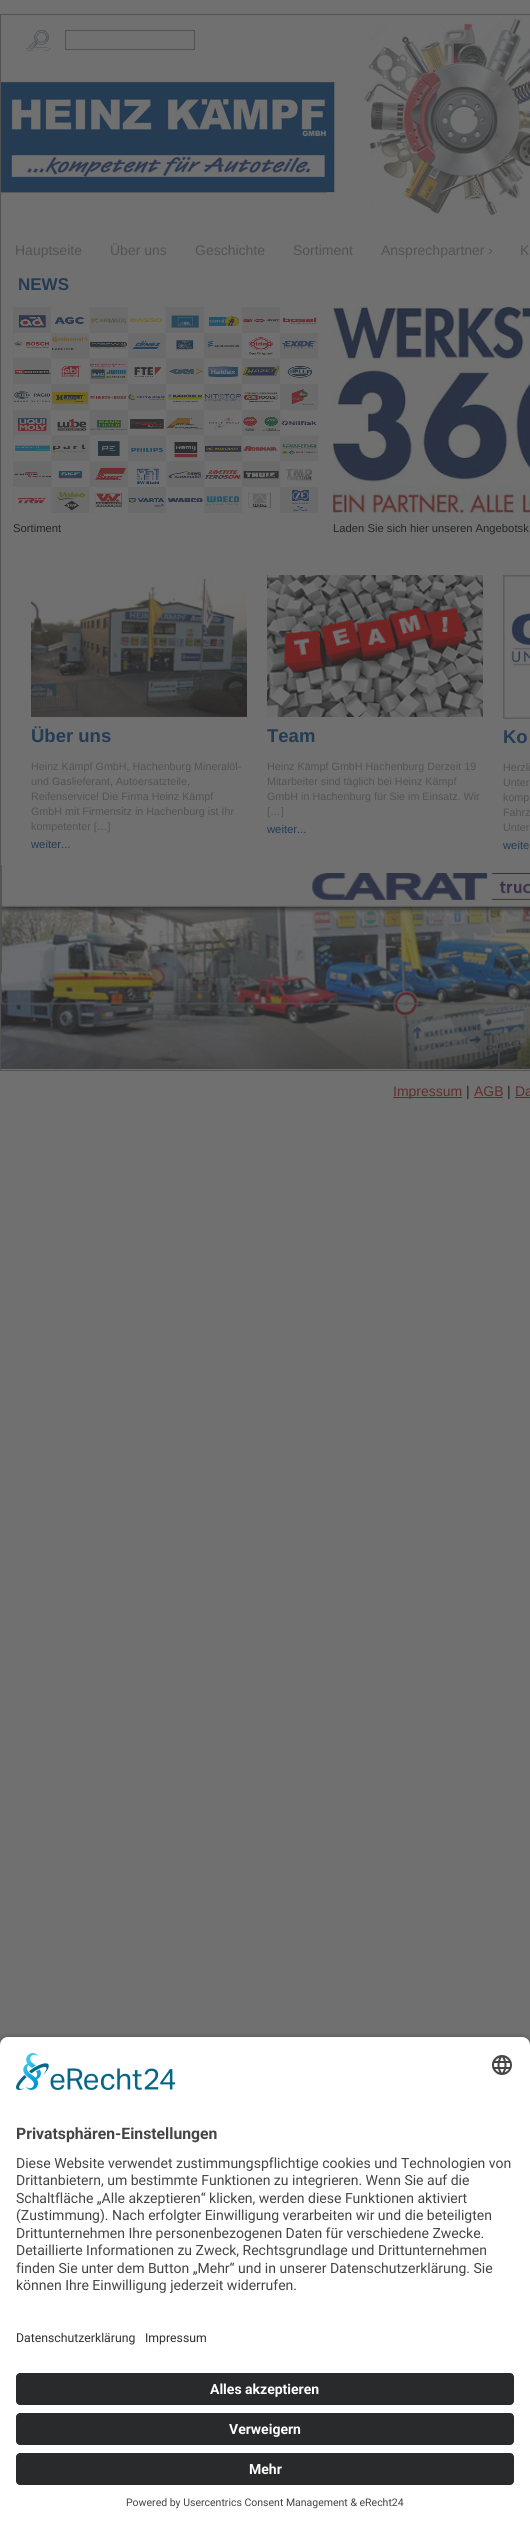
import math
import cairo

surface = cairo.ImageSurface(cairo.FORMAT_RGB24, 530, 2525)
c = cairo.Context(surface)
options = cairo.FontOptions()
options.set_hint_metrics(cairo.HINT_METRICS_OFF)
options.set_hint_style(cairo.HINT_STYLE_NONE)
c.set_font_options(options)
c.set_miter_limit(4)
def C(code):
 c.set_source_rgb(*(v / 255 for v in bytes.fromhex(code[-6:])))
def F(family, size, italic, bold):
 c.select_font_face(family, cairo.FONT_SLANT_ITALIC if italic else cairo.FONT_SLANT_NORMAL, cairo.FONT_WEIGHT_BOLD if bold else cairo.FONT_WEIGHT_NORMAL)
 c.set_font_size(size)
def T(x, y, s):
 c.move_to(x, y)
 c.show_text(s)
def R(x, y, w, h):
 c.rectangle(x, y, w, h)
 c.fill()
def Q(x, y, w, h, r):
 c.new_sub_path()
 for i, (u, v) in enumerate([(x + w - r, y + h - r), (x + r, y + h - r), (x + r, y + r), (x + w - r, y + r)]):
  c.arc(u, v, r, i * math.pi / 2, (i + 1) * math.pi / 2)
 c.close_path()
def S(x, y, w, h, r, blur, alpha):
 c.push_group_with_content(cairo.CONTENT_ALPHA)
 c.set_operator(cairo.OPERATOR_SOURCE)
 for i in range(15, -16, -2):
  e = blur * i / 6
  if min(w, h) + 2 * e > 0:
   c.set_source_rgba(0, 0, 0, alpha * math.erfc((i - 1) / 8.5) / 2)
   Q(x - e, y - e, w + 2 * e, h + 2 * e, max(0, min(r + e + blur * .6, min(w, h) / 2 + e)))
   c.fill()
 c.mask(c.pop_group())
def I(path, x, y, w, h):
 c.save()
 c.set_source_surface(cairo.ImageSurface.create_from_png(path), x, y)
 c.rectangle(x, y, w, h)
 c.fill()
 c.restore()
C('707070')
c.paint()
c.rectangle(.5,14.5,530,1056)
C('525252')
c.set_line_width(1)
c.stroke()
I('1.png',1,17,529,200)
I('2.png',26,30,25,21)
c.rectangle(65.5,30.5,129,19)
c.stroke()
F('Liberation Sans',14,0,0)
T(15,255,'Hauptseite')
T(110,255,'Über uns')
T(195,255,'Geschichte')
T(293,255,'Sortiment')
T(381,255,'Ansprechpartner')
T(488,255,'›')
T(520,255,'K')
F('Liberation Sans',17,0,1)
C('243b53')
T(18,290,'NEWS')
I('3.png',13,307,306,206)
F('Liberation Sans',11.25,0,0)
C('242424')
T(13,532,'Sortiment')
I('4.png',333,307,197,206)
T(333,532,'Laden Sie sich hier unseren Angebotsk')
I('5.png',31,575,216,142)
F('Liberation Sans',18.5,0,1)
C('243b53')
T(31,742,'Über uns')
F('Liberation Sans',10.75,0,0)
C('525252')
T(31,770,'Heinz Kämpf GmbH, Hachenburg Mineralöl-')
T(31,785,'und Gaslieferant, Autoersatzteile,')
T(31,800,'Reifenservice! Die Firma Heinz Kämpf')
T(31,815,'GmbH mit Firmensitz in Hachenburg ist Ihr')
T(31,830,'kompetenter […]')
F('Liberation Sans',11.25,0,0)
C('243b53')
T(31,848,'weiter...')
I('6.png',267,575,216,142)
F('Liberation Sans',18.5,0,1)
T(267,742,'Team')
F('Liberation Sans',10.75,0,0)
C('525252')
T(267,770,'Heinz Kämpf GmbH Hachenburg Derzeit 19')
T(267,785,'Mitarbeiter sind täglich bei Heinz Kämpf')
T(267,800,'GmbH in Hachenburg für Sie im Einsatz. Wir')
T(267,815,'[…]')
F('Liberation Sans',11.25,0,0)
C('243b53')
T(267,833,'weiter...')
I('7.png',503,575,27,144)
F('Liberation Sans',18.5,0,1)
T(503,743,'Ko')
F('Liberation Sans',10.75,0,0)
C('525252')
T(503,771,'Herzli')
T(503,786,'Unter')
T(503,801,'komp')
T(503,816,'Fahrz')
T(503,831,'Unter')
F('Liberation Sans',11.25,0,0)
C('243b53')
T(503,849,'weite')
I('8.png',1,865,529,204)
C('602d2b')
R(393,1097,69,1)
F('Liberation Sans',14,0,0)
T(393,1096,'Impressum')
C('242424')
T(466,1096,'|')
C('602d2b')
T(474,1096,'AGB')
R(474,1097,29,1)
C('242424')
T(507,1096,'|')
C('602d2b')
T(515,1096,'Da')
R(515,1097,15,1)
C('000000')
S(0,2040,530,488,8,3.5,.8)
C('ffffff')
c.new_path()
c.move_to(8,2037)
c.line_to(522,2037)
c.curve_to(526.5,2037,530,2040.5,530,2045)
c.line_to(530,2315)
c.line_to(0,2315)
c.line_to(0,2045)
c.curve_to(0,2040.5,3.5,2037,8,2037)
c.close_path()
c.fill()
I('9.png',16,2053,160,37)
I('10.png',492,2055,20,20)
F('Roboto',15.75,0,1)
C('444444')
T(16,2139,'Privatsphären-Einstellungen')
F('Roboto',14,0,0)
T(16,2168,'Diese Website verwendet zustimmungspflichtige cookies und Technologien von')
T(16,2185,'Drittanbietern, um bestimmte Funktionen zu integrieren. Wenn Sie auf die')
T(16,2203,'Schaltfläche „Alle akzeptieren“ klicken, werden diese Funktionen aktiviert')
T(16,2220,'(Zustimmung). Nach erfolgter Einwilligung verarbeiten wir und die beteiligten')
T(16,2238,'Drittunternehmen Ihre personenbezogenen Daten für verschiedene Zwecke.')
T(16,2255,'Detaillierte Informationen zu Zweck, Rechtsgrundlage und Drittunternehmen')
T(16,2273,'finden Sie unter dem Button „Mehr“ und in unserer Datenschutzerklärung. Sie')
T(16,2290,'können Ihre Einwilligung jederzeit widerrufen.')
C('ffffff')
R(0,2315,530,210)
F('Roboto',12.25,0,0)
C('303030')
T(16,2342,'Datenschutzerklärung')
T(145,2342,'Impressum')
C('292a2b')
Q(16,2373,498,32,4)
c.fill()
F('Roboto',14,0,1)
C('ffffff')
T(210,2394,'Alles akzeptieren')
C('292a2b')
Q(16,2413,498,32,4)
c.fill()
C('ffffff')
T(229,2434,'Verweigern')
C('292a2b')
Q(16,2453,498,32,4)
c.fill()
C('ffffff')
T(249,2474,'Mehr')
F('Roboto',10.5,0,0)
C('444444')
T(126,2506,'Powered by Usercentrics Consent Management & eRecht24')
surface.write_to_png('o.png')
